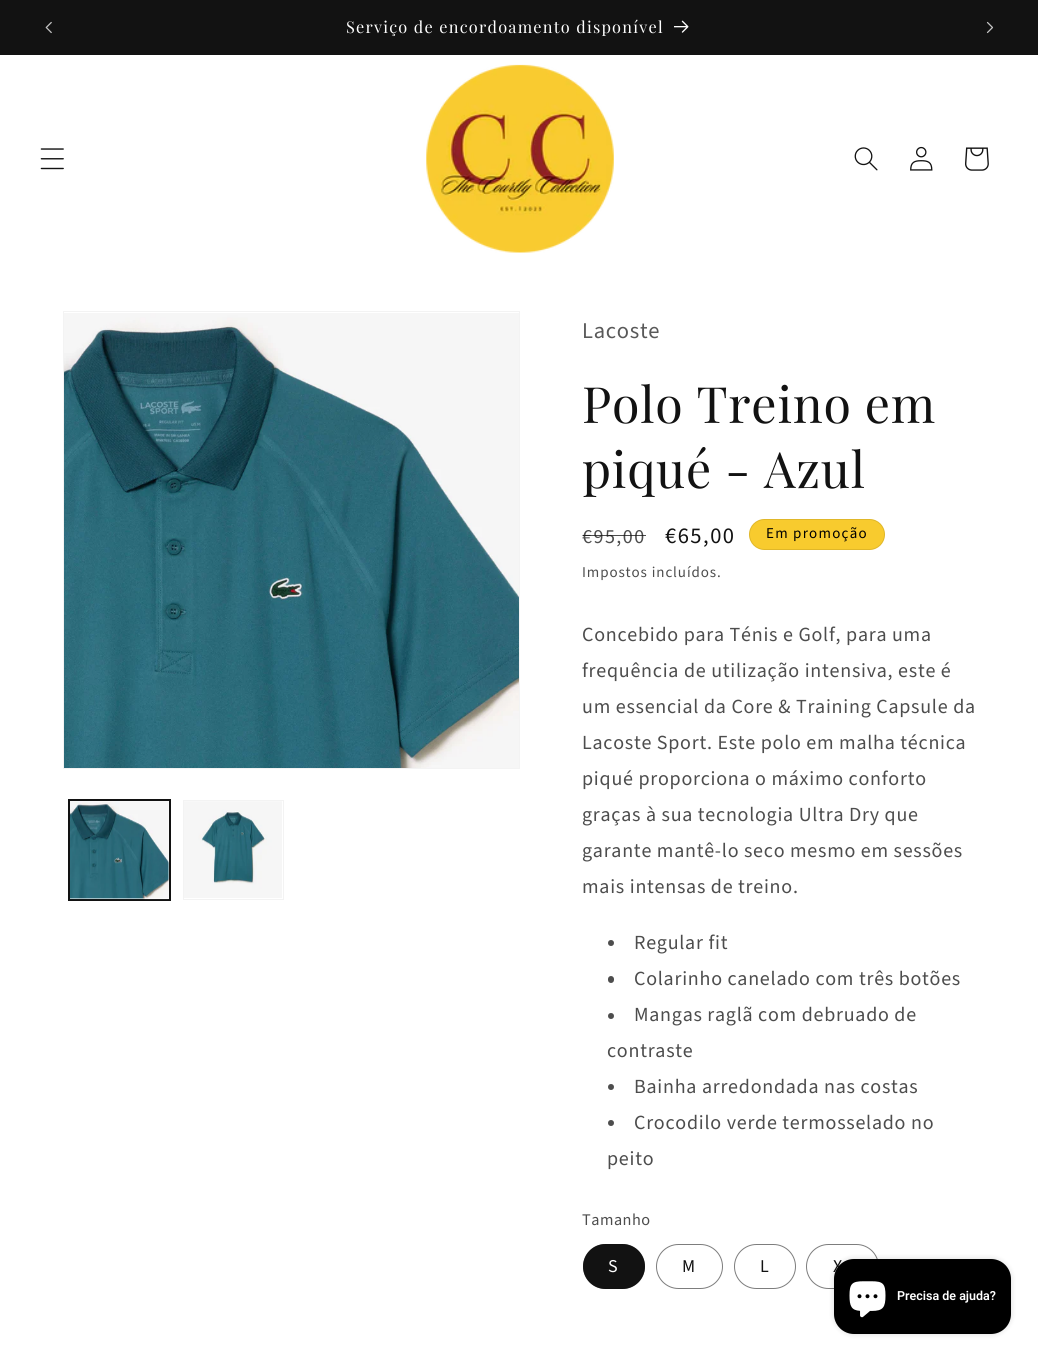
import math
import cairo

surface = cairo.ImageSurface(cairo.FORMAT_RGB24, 1038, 1359)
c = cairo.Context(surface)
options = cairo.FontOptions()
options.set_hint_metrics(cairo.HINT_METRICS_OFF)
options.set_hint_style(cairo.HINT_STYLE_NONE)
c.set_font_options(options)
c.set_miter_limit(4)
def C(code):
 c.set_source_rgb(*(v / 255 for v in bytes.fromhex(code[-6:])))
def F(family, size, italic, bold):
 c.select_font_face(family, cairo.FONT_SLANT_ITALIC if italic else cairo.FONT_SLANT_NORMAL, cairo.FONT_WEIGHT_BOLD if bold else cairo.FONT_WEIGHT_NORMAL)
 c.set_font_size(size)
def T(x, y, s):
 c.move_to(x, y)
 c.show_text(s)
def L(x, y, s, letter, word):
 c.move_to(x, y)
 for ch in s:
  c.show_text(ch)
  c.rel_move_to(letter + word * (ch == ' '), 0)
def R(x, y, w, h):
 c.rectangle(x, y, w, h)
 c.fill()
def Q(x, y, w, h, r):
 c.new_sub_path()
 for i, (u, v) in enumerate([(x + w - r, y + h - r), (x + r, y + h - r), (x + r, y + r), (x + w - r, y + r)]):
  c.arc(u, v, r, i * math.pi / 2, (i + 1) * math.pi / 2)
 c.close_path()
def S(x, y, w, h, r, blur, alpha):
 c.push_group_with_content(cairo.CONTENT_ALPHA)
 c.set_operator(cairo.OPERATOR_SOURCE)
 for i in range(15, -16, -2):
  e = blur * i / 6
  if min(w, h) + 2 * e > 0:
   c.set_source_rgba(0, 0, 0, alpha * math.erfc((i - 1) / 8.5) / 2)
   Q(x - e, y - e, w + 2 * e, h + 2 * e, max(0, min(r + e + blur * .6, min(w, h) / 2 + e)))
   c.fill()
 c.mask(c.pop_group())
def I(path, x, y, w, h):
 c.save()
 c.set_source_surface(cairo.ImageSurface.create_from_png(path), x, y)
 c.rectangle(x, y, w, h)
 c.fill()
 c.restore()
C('ffffff')
c.paint()
C('121212')
R(0,0,1038,55)
I('1.png',45,21,7,13)
F('Playfair Display',16.25,0,0)
C('ffffff')
L(346,33,'Serviço de encordoamento disponível',1.25,0)
I('2.png',674,20,15,13)
I('3.png',986,21,8,13)
I('4.png',40,148,24,22)
I('5.png',426,64,188,189)
I('6.png',854,147,24,24)
I('7.png',910,146,23,25)
I('8.png',965,147,24,24)
c.rectangle(63.5,311.5,456,457)
C('f3f3f3')
c.set_line_width(1)
c.stroke()
I('9.png',64,313,455,455)
c.rectangle(68.5,799.5,102,101)
C('121212')
c.stroke()
c.rectangle(69.5,800.5,100,99)
c.stroke()
I('10.png',70,801,99,99)
c.rectangle(183.5,800.5,100,99)
C('f3f3f3')
c.stroke()
I('11.png',184,801,98,97)
F('Source Sans Pro',22.5,0,0)
C('595959')
L(582,338,'Lacoste',.75,0)
F('Playfair Display',50,0,0)
C('121212')
L(582,423,'Polo Treino em',.75,0)
L(582,488,'piqué - Azul',.75,0)
F('Source Sans Pro',20,0,0)
C('4d4d4d')
L(582,543,'€95,00',1.5,0)
c.set_source_rgba(0.071,0.071,0.071,0.75)
R(583,535,63,1)
F('Source Sans Pro',22.5,0,0)
C('121212')
L(665,543,'€65,00',1.5,0)
C('f8cb2e')
Q(749,519,136,31,15.5)
c.fill()
Q(749.5,519.5,135,30,15)
c.set_source_rgba(0,0,0,0.1)
c.stroke()
F('Source Sans Pro',15,0,0)
C('000000')
L(766,538,'Em promoção',1.25,0)
C('4d4d4d')
L(582,577,'Impostos incluídos.',.9,0)
F('Source Sans Pro',20,0,0)
L(582,641,'Concebido para Ténis e Golf, para uma',.75,0)
L(582,677,'frequência de utilização intensiva, este é',.75,0)
L(582,713,'um essencial da Core & Training Capsule da',.75,0)
L(582,749,'Lacoste Sport. Este polo em malha técnica',.75,0)
L(582,785,'piqué proporciona o máximo conforto',.75,0)
L(582,821,'graças à sua tecnologia Ultra Dry que',.75,0)
L(582,857,'garante mantê-lo seco mesmo em sessões',.75,0)
L(582,893,'mais intensas de treino.',.75,0)
c.new_path()
c.arc(611,943,3,0,2 * math.pi)
c.fill()
L(634,949,'Regular fit',.75,0)
Q(608,976,6,7,3)
c.fill()
L(634,985,'Colarinho canelado com três botões',.75,0)
c.new_path()
c.arc(611,1016,3,0,2 * math.pi)
c.fill()
L(634,1021,'Mangas raglã com debruado de',.75,0)
L(607,1057,'contraste',.75,0)
c.new_path()
c.arc(611,1087,3,0,2 * math.pi)
c.fill()
L(634,1093,'Bainha arredondada nas costas',.75,0)
c.new_path()
c.arc(611,1123,3,0,2 * math.pi)
c.fill()
L(634,1129,'Crocodilo verde termosselado no',.75,0)
L(607,1165,'peito',.75,0)
F('Source Sans Pro',16.25,0,0)
L(582,1225,'Tamanho',.5,0)
C('121212')
Q(583,1244,62,45,22.5)
c.fill()
Q(583.5,1244.5,61,44,22)
c.set_source_rgba(0.071,0.071,0.071,0.55)
c.stroke()
F('Source Sans Pro',18,0,0)
C('ffffff')
L(608,1272,'S',1.25,0)
Q(656.5,1244.5,66,44,22)
C('7d7d7d')
c.stroke()
C('121212')
L(682,1272,'M',1.25,0)
Q(734.5,1244.5,61,44,22)
C('7d7d7d')
c.stroke()
C('121212')
L(760,1272,'L',1.25,0)
Q(806.5,1244.5,72,44,22)
C('7d7d7d')
c.stroke()
C('121212')
L(833,1272,'X',1.25,0)
C('000000')
S(834,1259,177,75,20,3,.15)
C('000000')
Q(834,1259,177,75,20)
c.fill()
I('12.png',849,1281,37,37)
F('Roboto SemiBold',12.5,0,0)
C('ffffff')
T(897,1300,'Precisa de ajuda?')
surface.write_to_png('o.png')
